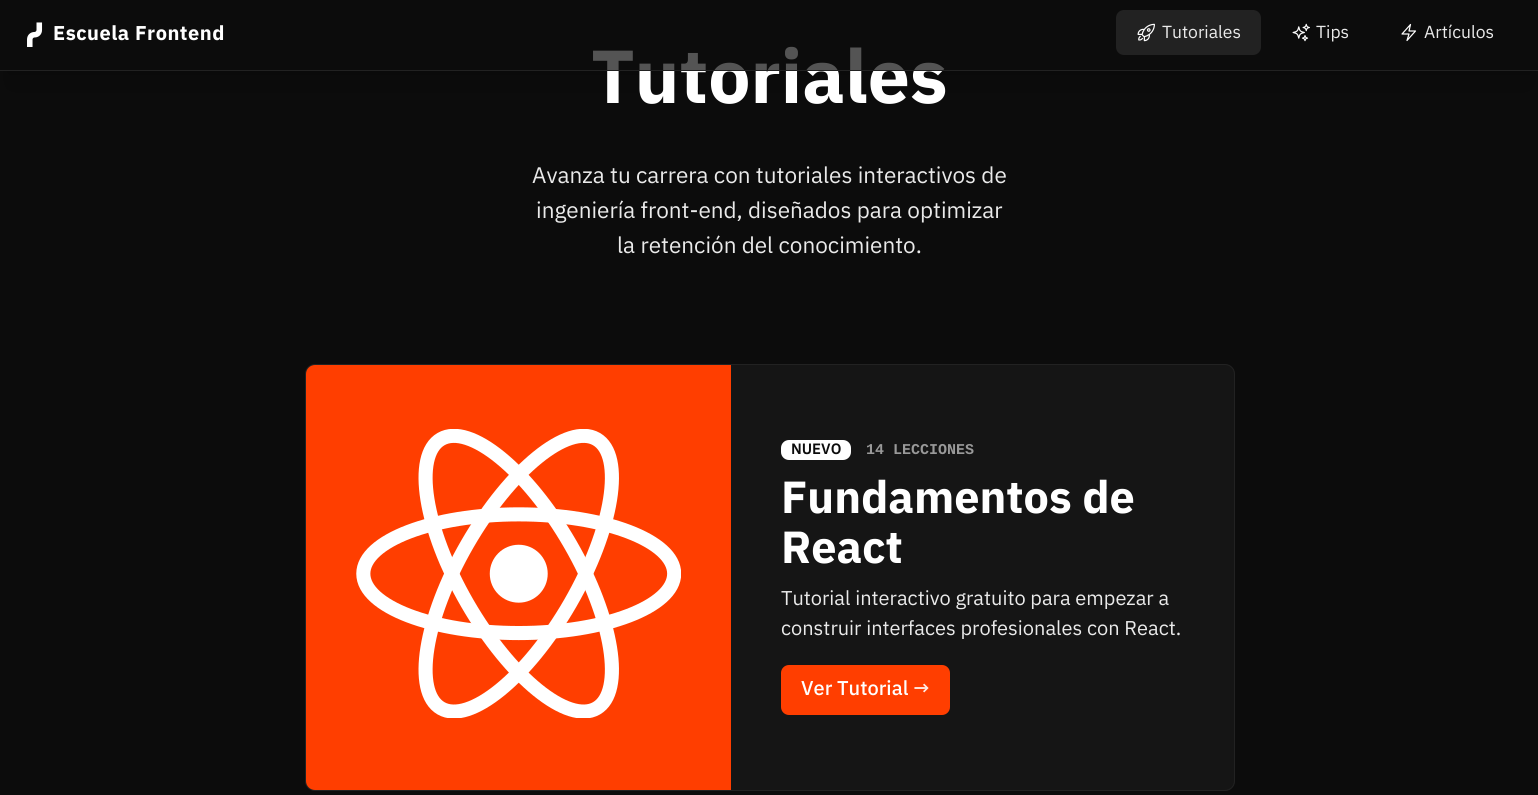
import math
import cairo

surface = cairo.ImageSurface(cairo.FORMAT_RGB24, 1538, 795)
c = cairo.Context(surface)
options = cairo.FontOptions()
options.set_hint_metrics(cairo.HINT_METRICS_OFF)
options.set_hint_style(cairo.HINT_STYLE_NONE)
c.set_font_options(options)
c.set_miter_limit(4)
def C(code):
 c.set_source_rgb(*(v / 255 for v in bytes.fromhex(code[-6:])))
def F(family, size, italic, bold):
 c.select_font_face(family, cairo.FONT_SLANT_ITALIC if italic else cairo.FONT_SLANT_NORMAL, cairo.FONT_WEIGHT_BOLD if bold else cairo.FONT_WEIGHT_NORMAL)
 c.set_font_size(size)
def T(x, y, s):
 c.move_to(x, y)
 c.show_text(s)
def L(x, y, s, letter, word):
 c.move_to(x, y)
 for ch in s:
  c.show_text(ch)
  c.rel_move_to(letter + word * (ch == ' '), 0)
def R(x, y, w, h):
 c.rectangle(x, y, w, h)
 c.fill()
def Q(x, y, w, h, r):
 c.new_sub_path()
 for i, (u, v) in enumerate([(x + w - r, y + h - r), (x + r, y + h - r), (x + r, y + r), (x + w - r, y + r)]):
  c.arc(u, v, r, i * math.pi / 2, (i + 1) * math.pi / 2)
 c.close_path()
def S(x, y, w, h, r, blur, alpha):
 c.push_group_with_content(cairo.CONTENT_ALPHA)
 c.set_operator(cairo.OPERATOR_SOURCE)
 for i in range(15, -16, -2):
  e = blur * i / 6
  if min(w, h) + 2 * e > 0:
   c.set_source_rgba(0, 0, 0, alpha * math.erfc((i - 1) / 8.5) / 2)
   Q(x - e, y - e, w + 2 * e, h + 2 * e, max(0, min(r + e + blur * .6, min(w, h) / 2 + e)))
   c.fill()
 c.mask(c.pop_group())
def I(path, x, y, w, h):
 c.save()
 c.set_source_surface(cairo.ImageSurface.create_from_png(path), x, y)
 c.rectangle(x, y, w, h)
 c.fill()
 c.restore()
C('0c0c0c')
c.paint()
c.save()
c.rectangle(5,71,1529,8)
c.clip()
C('000000')
S(8,18,1523,56,0,6,.1)
c.restore()
c.save()
c.rectangle(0,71,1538,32)
c.clip()
C('000000')
S(6,31,1527,59,0,15.5,.1)
c.restore()
F('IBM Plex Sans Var',75,0,1)
C('ffffff')
T(591,103,'Tutoriales')
c.set_source_rgba(0.047,0.047,0.047,0.7)
R(593,46,352,24)
C('222222')
R(0,70,1538,1)
F('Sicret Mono',38,0,1)
C('ffffff')
L(25,49,'/',-1,0)
F('IBM Plex Sans Var',20,0,1)
L(53,40,'Escuela Frontend',.5,0)
C('222222')
Q(1116,10,145,45,8)
c.fill()
I('1.png',1137,23,18,19)
F('IBM Plex Sans Var',17.5,0,0)
C('eaeaea')
T(1162,38,'Tutoriales')
I('2.png',1292,23,18,19)
T(1316,38,'Tips')
c.new_path()
c.move_to(1402,34)
c.line_to(1410.5,24.5)
c.line_to(1409,31)
c.line_to(1415.5,31)
c.line_to(1407,40.5)
c.line_to(1409,34)
c.close_path()
C('ffffff')
c.set_line_width(1.2)
c.set_line_cap(cairo.LINE_CAP_ROUND)
c.set_line_join(cairo.LINE_JOIN_ROUND)
c.stroke()
C('eaeaea')
T(1424,38,'Artículos')
F('IBM Plex Sans Var',22.5,0,0)
T(532,183,'Avanza tu carrera con tutoriales interactivos de')
T(536,218,'ingeniería front-end, diseñados para optimizar')
T(617,253,'la retención del conocimiento.')
C('151515')
Q(305.5,364.5,929,426,9.5)
c.fill_preserve()
C('222222')
c.set_line_width(1)
c.set_line_cap(cairo.LINE_CAP_BUTT)
c.set_line_join(cairo.LINE_JOIN_MITER)
c.stroke()
C('ff3e00')
c.new_path()
c.move_to(315,365)
c.line_to(731,365)
c.line_to(731,790)
c.line_to(315,790)
c.curve_to(310,790,306,786,306,781)
c.line_to(306,374)
c.curve_to(306,369,310,365,315,365)
c.close_path()
c.fill()
I('3.png',356,429,325,289)
C('ffffff')
Q(781,440,70,20,8)
c.fill()
F('IBM Plex Sans Var SemiBold',15,0,0)
C('0c0c0c')
T(791,454,'NUEVO')
F('Liberation Mono',15,0,1)
C('999999')
T(866,454,'14 LECCIONES')
F('IBM Plex Sans Var',45,0,1)
C('ffffff')
T(781,513,'Fundamentos de')
T(781,563,'React')
F('IBM Plex Sans Var',20,0,0)
C('eaeaea')
T(781,605,'Tutorial interactivo gratuito para empezar a')
T(781,635,'construir interfaces profesionales con React.')
C('ff3e00')
Q(781,665,169,50,8)
c.fill()
F('IBM Plex Sans Var Medium',20,0,0)
C('ffffff')
T(801,695,'Ver Tutorial')
C('ffece6')
T(913,695,'→')
surface.write_to_png('o.png')
